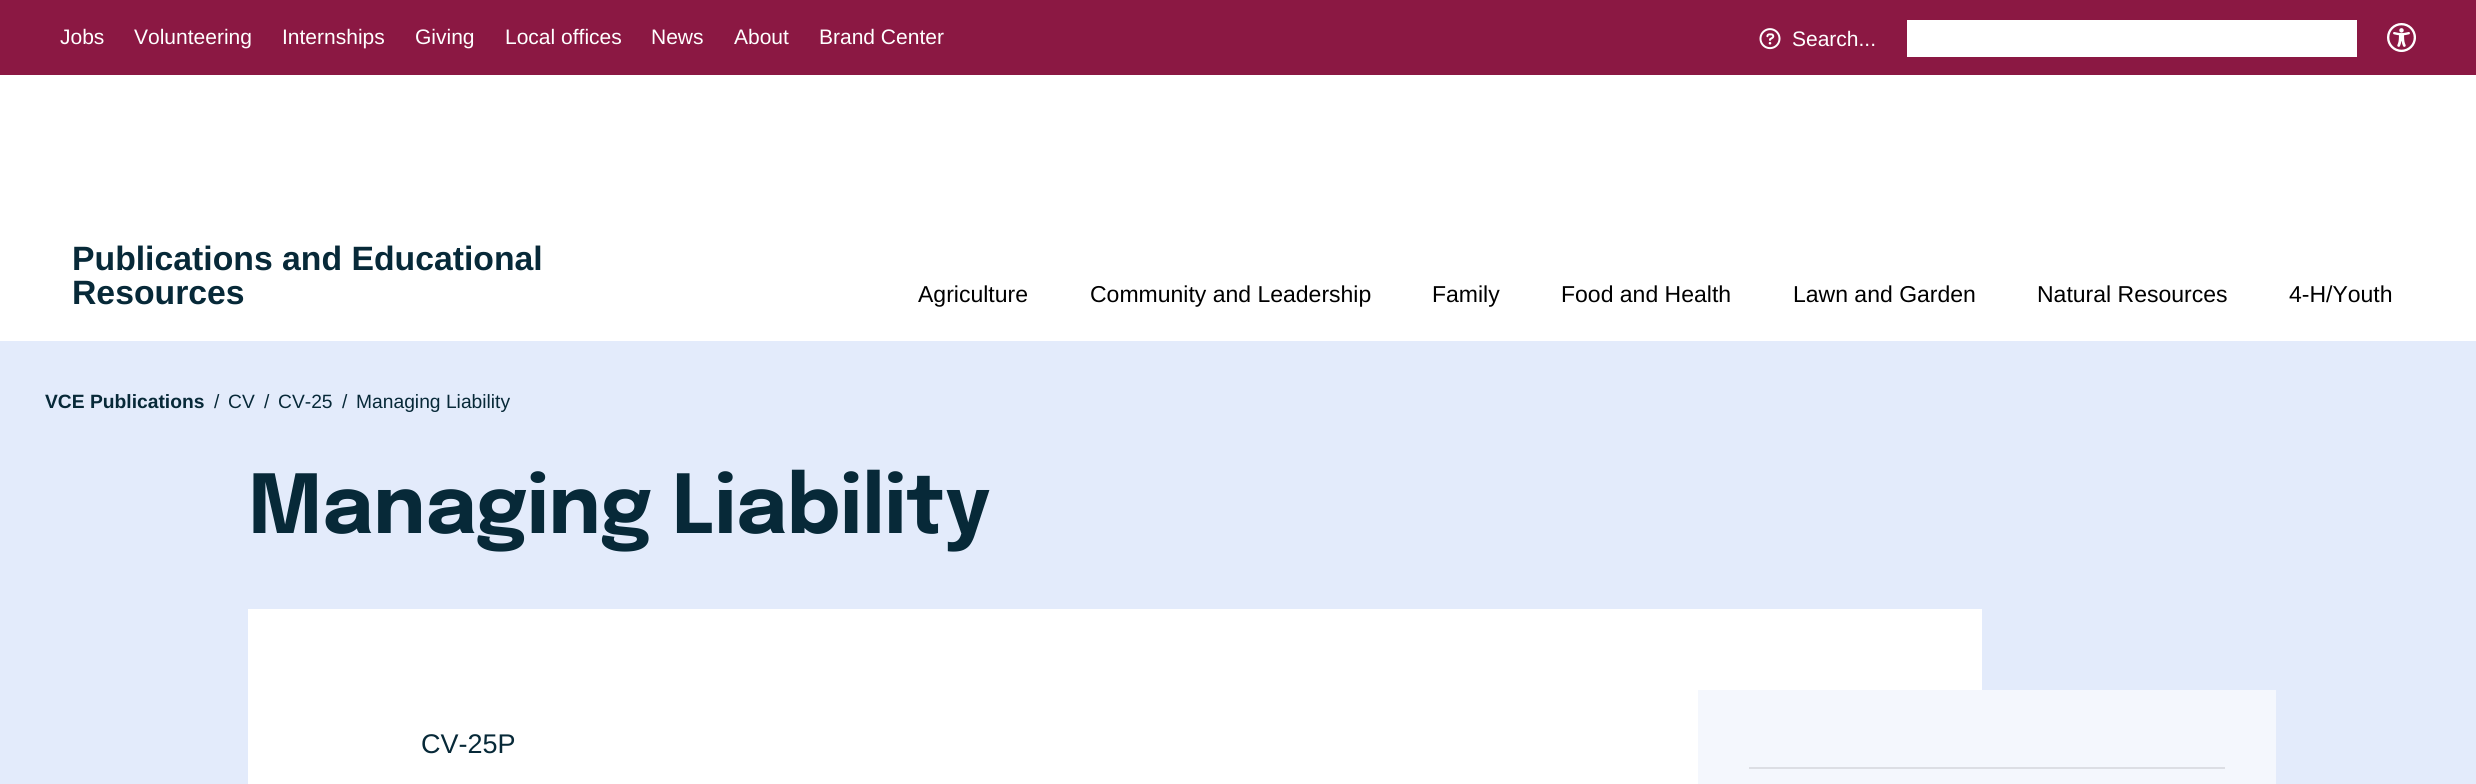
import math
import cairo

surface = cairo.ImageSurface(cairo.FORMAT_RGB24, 2476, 784)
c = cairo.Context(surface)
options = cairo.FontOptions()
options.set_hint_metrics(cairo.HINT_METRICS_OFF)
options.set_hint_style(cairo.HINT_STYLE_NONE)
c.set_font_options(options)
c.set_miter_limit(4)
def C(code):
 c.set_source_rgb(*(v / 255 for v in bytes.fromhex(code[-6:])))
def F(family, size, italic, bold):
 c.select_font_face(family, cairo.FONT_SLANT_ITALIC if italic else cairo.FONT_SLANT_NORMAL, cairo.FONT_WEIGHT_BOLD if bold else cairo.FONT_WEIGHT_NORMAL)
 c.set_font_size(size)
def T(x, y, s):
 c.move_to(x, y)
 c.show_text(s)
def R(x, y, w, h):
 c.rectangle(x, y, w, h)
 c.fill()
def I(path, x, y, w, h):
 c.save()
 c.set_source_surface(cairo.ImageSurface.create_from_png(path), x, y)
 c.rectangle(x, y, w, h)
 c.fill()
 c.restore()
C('ffffff')
c.paint()
C('8b1843')
R(0,0,2476,75)
F('Liberation Sans',21,0,0)
C('ffffff')
T(60,44,'Jobs')
T(134,44,'Volunteering')
T(282,44,'Internships')
T(415,44,'Giving')
T(505,44,'Local offices')
T(651,44,'News')
T(734,44,'About')
T(819,44,'Brand Center')
I('1.png',1759,28,22,22)
T(1792,46,'Search...')
R(1907,20,450,37)
I('2.png',2387,23,29,29)
F('Liberation Sans',33.75,0,1)
C('072938')
T(72,270,'Publications and Educational')
T(72,304,'Resources')
F('Liberation Sans',23,0,0)
C('000000')
T(918,302,'Agriculture')
T(1090,302,'Community and Leadership')
T(1432,302,'Family')
T(1561,302,'Food and Health')
T(1793,302,'Lawn and Garden')
T(2037,302,'Natural Resources')
T(2289,302,'4-H/Youth')
C('e3ebfb')
R(0,341,2476,443)
F('Liberation Sans',19.25,0,1)
C('072938')
T(45,408,'VCE Publications')
F('Liberation Sans',19.25,0,0)
T(214,408,'/')
T(228,408,'CV')
T(264,408,'/')
T(278,408,'CV-25')
T(342,408,'/')
T(356,408,'Managing Liability')
F('Epilogue',81,0,1)
T(248,533,'Managing Liability')
C('ffffff')
R(248,609,1734,175)
F('Liberation Sans',27,0,0)
C('072938')
T(421,753,'CV-25P')
C('f4f7fd')
R(1698,690,578,94)
C('dcdee4')
R(1749,767,476,2)
surface.write_to_png('o.png')
